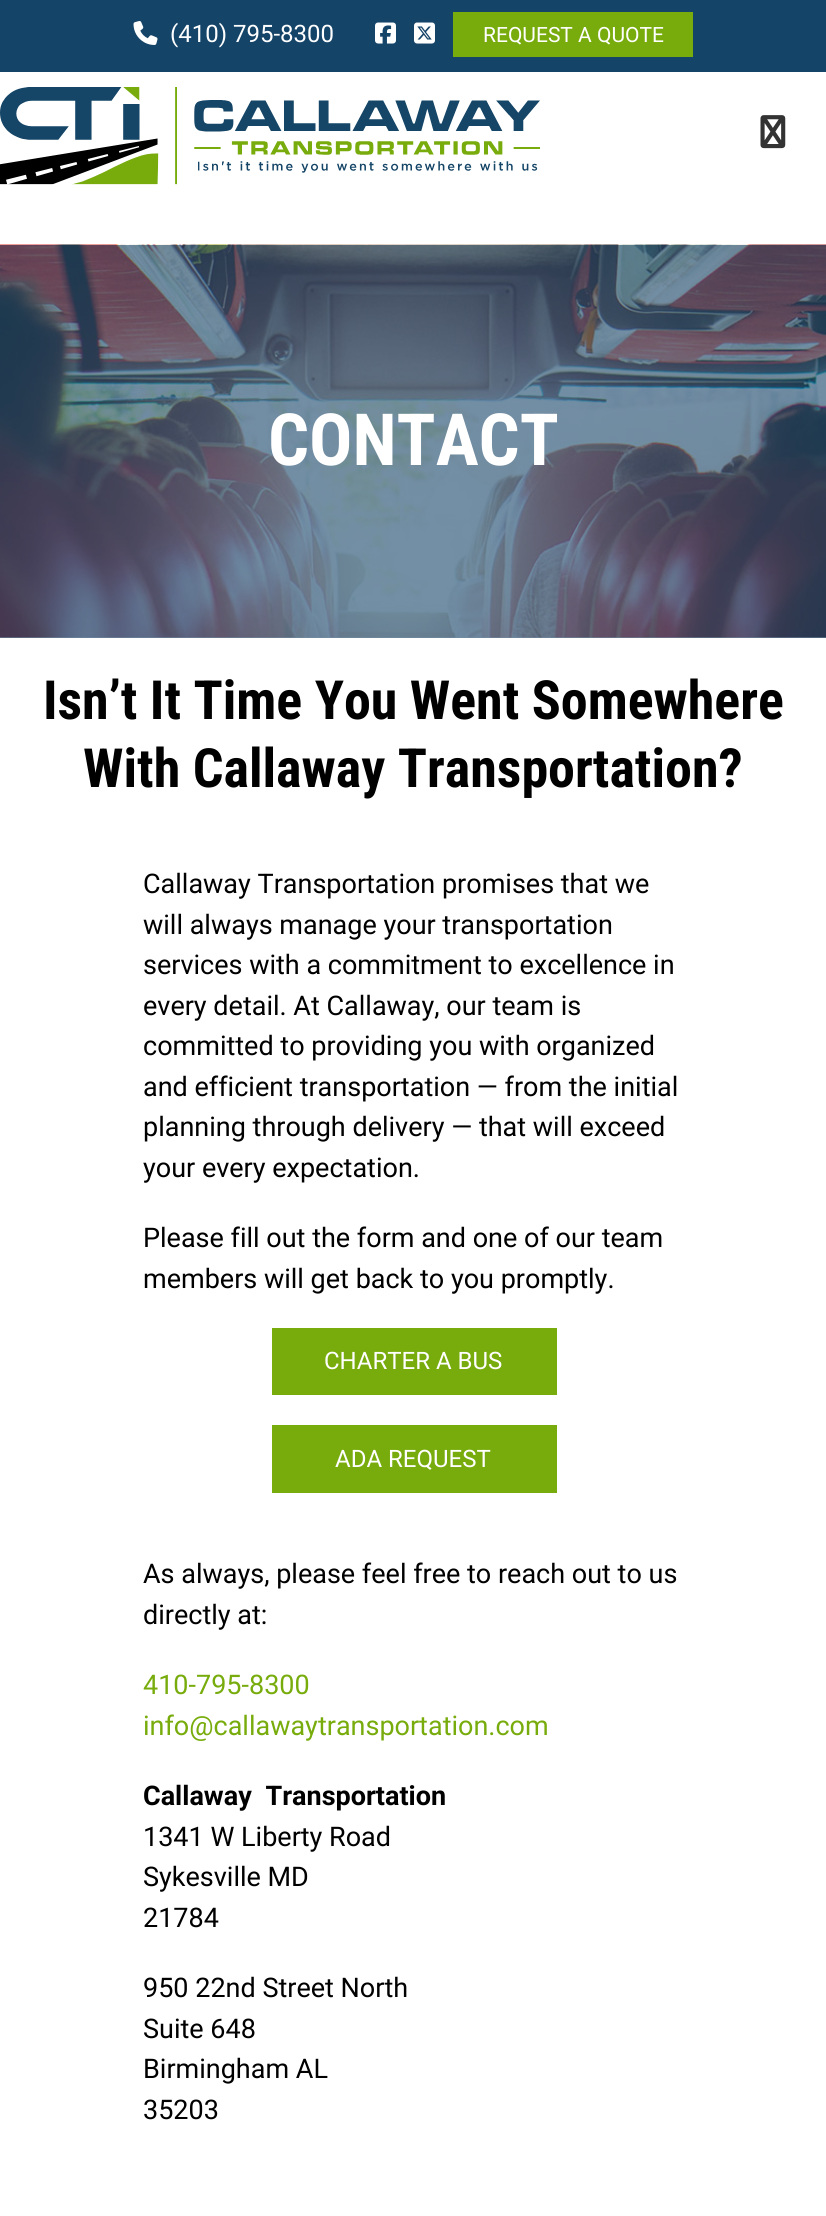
import math
import cairo

surface = cairo.ImageSurface(cairo.FORMAT_RGB24, 826, 2216)
c = cairo.Context(surface)
options = cairo.FontOptions()
options.set_hint_metrics(cairo.HINT_METRICS_OFF)
options.set_hint_style(cairo.HINT_STYLE_NONE)
c.set_font_options(options)
c.set_miter_limit(4)
def C(code):
 c.set_source_rgb(*(v / 255 for v in bytes.fromhex(code[-6:])))
def F(family, size, italic, bold):
 c.select_font_face(family, cairo.FONT_SLANT_ITALIC if italic else cairo.FONT_SLANT_NORMAL, cairo.FONT_WEIGHT_BOLD if bold else cairo.FONT_WEIGHT_NORMAL)
 c.set_font_size(size)
def T(x, y, s):
 c.move_to(x, y)
 c.show_text(s)
def L(x, y, s, letter, word):
 c.move_to(x, y)
 for ch in s:
  c.show_text(ch)
  c.rel_move_to(letter + word * (ch == ' '), 0)
def R(x, y, w, h):
 c.rectangle(x, y, w, h)
 c.fill()
def I(path, x, y, w, h):
 c.save()
 c.set_source_surface(cairo.ImageSurface.create_from_png(path), x, y)
 c.rectangle(x, y, w, h)
 c.fill()
 c.restore()
C('154469')
c.paint()
I('1.png',133,21,25,24)
F('Roboto',24,0,0)
C('ffffff')
T(170,42,'(410) 795-8300')
I('2.png',375,22,21,22)
I('3.png',414,22,21,22)
C('78ac0d')
R(453,12,240,45)
F('Roboto',21,0,0)
C('ffffff')
T(483,42,'REQUEST A QUOTE')
R(0,72,826,173)
I('4.png',0,87,540,98)
I('5.png',760,115,26,34)
R(0,638,826,1578)
C('738fa5')
R(0,637,826,1)
I('6.png',0,244,826,394)
F('Roboto Condensed',72,0,1)
C('ffffff')
T(268,465,'CONTACT')
F('Roboto Condensed',54,0,1)
C('000000')
T(43,719,'Isn’t It Time You Went Somewhere')
T(83,787,'With Callaway Transportation?')
F('Roboto',27,0,0)
T(143,893,'Callaway Transportation promises that we')
T(143,934,'will always manage your transportation')
T(143,974,'services with a commitment to excellence in')
T(143,1015,'every detail. At Callaway, our team is')
T(143,1055,'committed to providing you with organized')
T(143,1096,'and efficient transportation — from the initial')
T(143,1136,'planning through delivery — that will exceed')
T(143,1177,'your every expectation.')
T(143,1247,'Please fill out the form and one of our team')
T(143,1288,'members will get back to you promptly.')
C('78ac0d')
R(272,1328,285,67)
F('Roboto',24,0,0)
C('ffffff')
T(324,1369,'CHARTER A BUS')
C('78ac0d')
R(272,1425,285,68)
C('ffffff')
T(335,1467,'ADA REQUEST')
F('Roboto',27,0,0)
C('000000')
T(143,1583,'As always, please feel free to reach out to us')
T(143,1624,'directly at:')
C('78ac0d')
T(143,1694,'410-795-8300')
T(143,1735,'info@callawaytransportation.com')
F('Roboto',27,0,1)
C('000000')
L(143,1805,'Callaway Transportation',0,7)
F('Roboto',27,0,0)
T(143,1846,'1341 W Liberty Road')
T(143,1886,'Sykesville MD')
T(143,1927,'21784')
T(143,1997,'950 22nd Street North')
T(143,2038,'Suite 648')
T(143,2078,'Birmingham AL')
T(143,2119,'35203')
surface.write_to_png('o.png')
